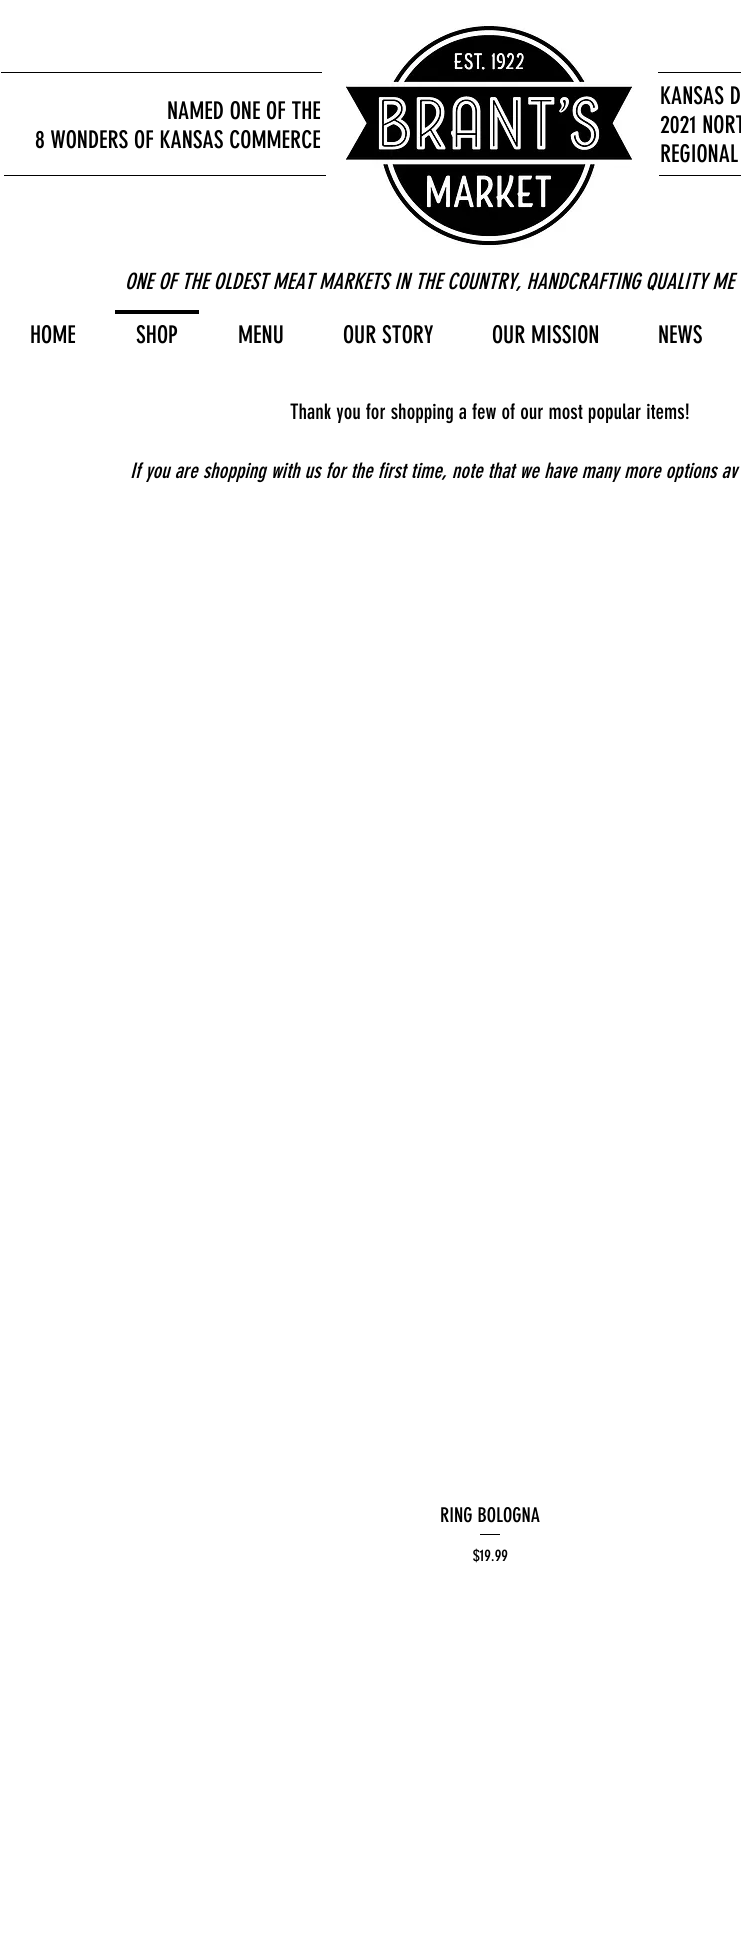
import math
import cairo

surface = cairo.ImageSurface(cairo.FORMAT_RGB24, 741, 1952)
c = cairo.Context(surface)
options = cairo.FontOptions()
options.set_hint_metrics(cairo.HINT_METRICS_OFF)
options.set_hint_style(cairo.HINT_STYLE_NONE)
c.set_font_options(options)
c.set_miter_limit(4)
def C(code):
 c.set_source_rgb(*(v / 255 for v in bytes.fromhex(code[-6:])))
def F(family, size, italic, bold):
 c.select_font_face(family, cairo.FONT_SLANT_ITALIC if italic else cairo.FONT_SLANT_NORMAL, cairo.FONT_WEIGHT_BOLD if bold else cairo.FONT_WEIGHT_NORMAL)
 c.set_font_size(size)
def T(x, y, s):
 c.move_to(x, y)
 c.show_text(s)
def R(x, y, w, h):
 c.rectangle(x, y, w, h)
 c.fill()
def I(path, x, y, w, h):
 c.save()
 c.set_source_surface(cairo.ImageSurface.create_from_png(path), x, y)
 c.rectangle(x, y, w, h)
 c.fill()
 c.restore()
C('ffffff')
c.paint()
C('000000')
R(1,72,321,1)
I('1.png',346,24,288,224)
R(658,72,83,1)
F('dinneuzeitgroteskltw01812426',24,0,0)
T(167,119,'NAMED ONE OF THE')
T(35,148,'8 WONDERS OF KANSAS COMMERCE')
T(660,104,'KANSAS D')
T(660,133,'2021 NORT')
T(660,162,'REGIONAL')
R(4,175,322,1)
R(659,175,82,1)
F('dinneuzeitgroteskltw01812426',22,1,0)
T(125,289,'ONE OF THE OLDEST MEAT MARKETS IN THE COUNTRY, HANDCRAFTING QUALITY ME')
F('dinneuzeitgroteskltw01812426',24,0,0)
T(30,343,'HOME')
R(115,310,84,4)
T(136,343,'SHOP')
T(238,343,'MENU')
T(343,343,'OUR STORY')
T(492,343,'OUR MISSION')
T(658,343,'NEWS')
F('dinneuzeitgroteskltw01812426',21,0,0)
T(290,419,'Thank you for shopping a few of our most popular items!')
F('dinneuzeitgroteskltw01812426',21,1,0)
T(130,478,'If you are shopping with us for the first time, note that we have many more options av')
F('dinneuzeitgroteskltw01812426',20,0,0)
T(440,1522,'RING BOLOGNA')
R(480,1534,20,1)
F('dinneuzeitgroteskltw01812426',16,0,0)
T(473,1561,'$19.99')
surface.write_to_png('o.png')
